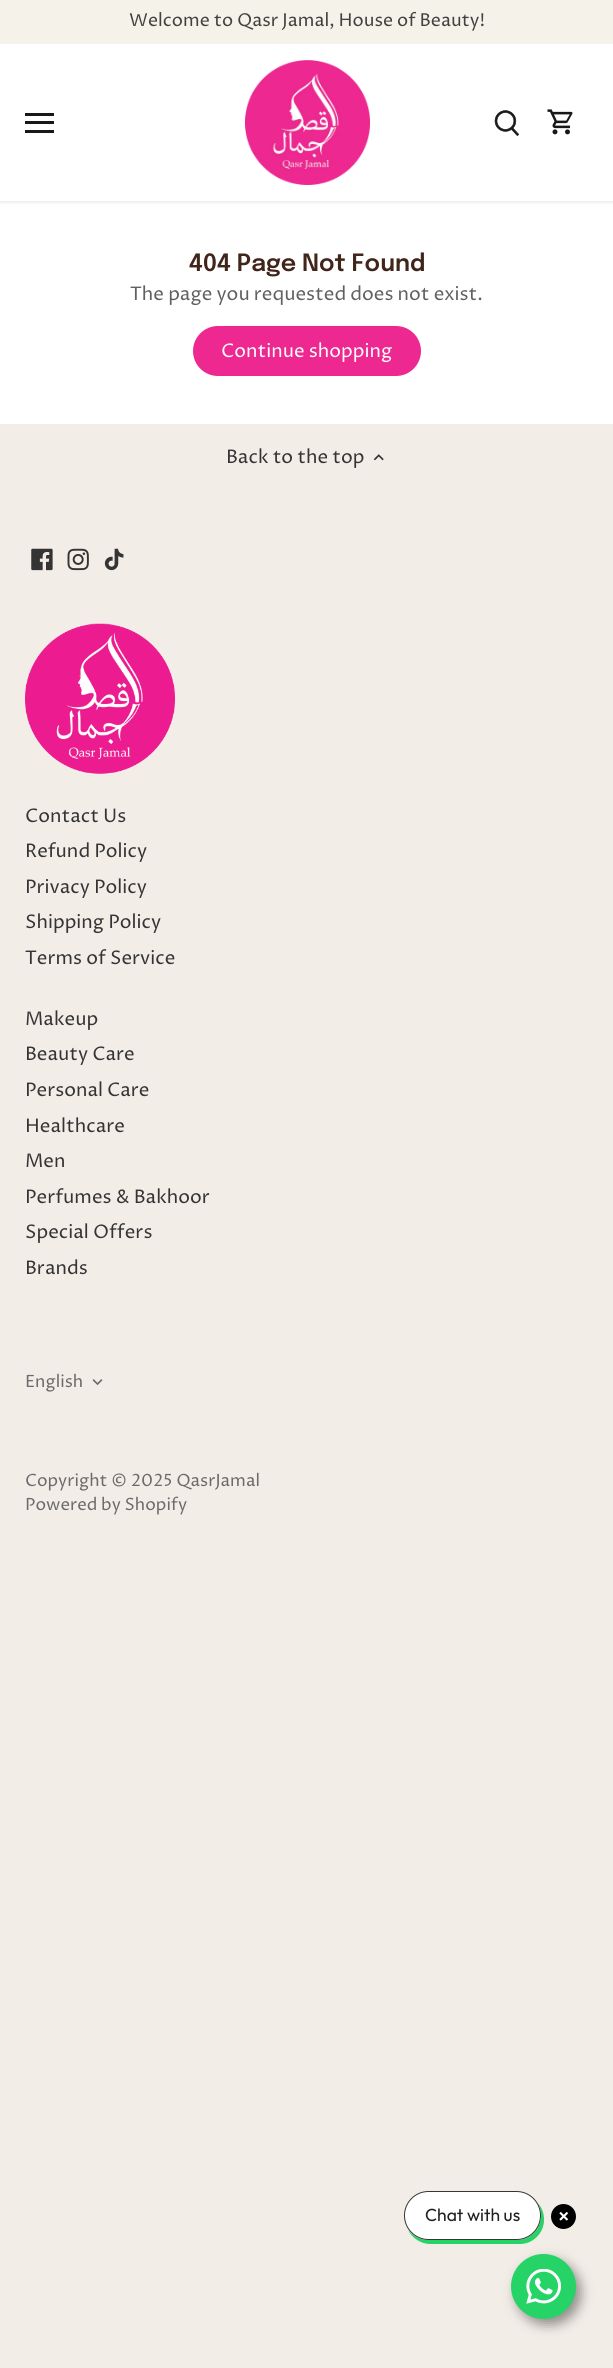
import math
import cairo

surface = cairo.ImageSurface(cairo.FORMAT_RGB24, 613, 2368)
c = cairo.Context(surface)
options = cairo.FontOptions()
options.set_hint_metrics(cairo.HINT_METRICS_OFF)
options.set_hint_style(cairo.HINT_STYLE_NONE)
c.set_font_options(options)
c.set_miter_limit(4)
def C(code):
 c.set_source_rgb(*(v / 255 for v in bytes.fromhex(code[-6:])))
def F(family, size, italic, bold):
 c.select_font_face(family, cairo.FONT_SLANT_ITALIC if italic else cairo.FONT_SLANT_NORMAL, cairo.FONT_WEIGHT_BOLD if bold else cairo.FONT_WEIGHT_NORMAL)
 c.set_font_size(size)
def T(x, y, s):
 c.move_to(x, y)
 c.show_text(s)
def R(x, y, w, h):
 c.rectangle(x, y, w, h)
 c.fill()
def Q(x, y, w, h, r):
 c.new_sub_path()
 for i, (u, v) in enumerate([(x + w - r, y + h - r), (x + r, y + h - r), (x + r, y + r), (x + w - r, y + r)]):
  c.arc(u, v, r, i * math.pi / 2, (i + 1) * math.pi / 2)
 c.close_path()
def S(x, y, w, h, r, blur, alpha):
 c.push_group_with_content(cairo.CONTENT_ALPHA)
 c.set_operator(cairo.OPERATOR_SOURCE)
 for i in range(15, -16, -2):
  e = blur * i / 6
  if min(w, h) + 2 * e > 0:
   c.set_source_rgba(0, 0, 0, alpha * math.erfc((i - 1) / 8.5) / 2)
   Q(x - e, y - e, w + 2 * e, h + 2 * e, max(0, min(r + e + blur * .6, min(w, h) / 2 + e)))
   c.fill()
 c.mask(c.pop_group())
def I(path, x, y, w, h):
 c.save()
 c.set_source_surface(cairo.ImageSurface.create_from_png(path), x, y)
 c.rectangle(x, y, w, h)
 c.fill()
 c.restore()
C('f3ede8')
c.paint()
C('ffffff')
R(0,44,613,380)
c.save()
c.rectangle(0,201,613,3)
c.clip()
C('000000')
S(-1,43,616,160,0,2,.08)
c.restore()
C('f4f2e9')
R(0,0,613,44)
F('Proza Libre',17.8,0,0)
C('414141')
T(129,26,'Welcome to Qasr Jamal, House of Beauty!')
C('191817')
R(25,113,29,3)
R(25,121,29,3)
R(25,130,29,3)
I('1.png',245,60,125,125)
I('2.png',494,110,26,26)
I('3.png',547,109,26,26)
F('Epilogue SemiBold',23.75,0,0)
C('41241a')
T(189,271,'404 Page Not Found')
F('Proza Libre',18.75,0,0)
C('616161')
T(130,300,'The page you requested does not exist.')
C('ed2891')
Q(194.5,327.5,225,47,23.5)
c.fill_preserve()
c.set_line_width(3)
c.stroke()
C('ffffff')
T(221,357,'Continue shopping')
C('343434')
T(226,463,'Back to the top')
I('4.png',373,454,11,7)
I('5.png',31,548,22,23)
I('6.png',67,548,22,23)
I('7.png',104,548,20,23)
I('8.png',25,623,150,151)
T(25,822,'Contact Us')
T(25,857,'Refund Policy')
T(25,893,'Privacy Policy')
T(25,928,'Shipping Policy')
T(25,964,'Terms of Service')
T(25,1025,'Makeup')
T(25,1060,'Beauty Care')
T(25,1096,'Personal Care')
T(25,1132,'Healthcare')
T(25,1167,'Men')
T(25,1203,'Perfumes & Bakhoor')
T(25,1238,'Special Offers')
T(25,1274,'Brands')
F('Proza Libre',16.9,0,0)
C('6b6b6b')
T(25,1387,'English')
I('9.png',92,1379,11,7)
T(25,1486,'Copyright © 2025 QasrJamal')
T(25,1510,'Powered by Shopify')
C('000000')
S(516,2260,65,65,32.5,6,.4)
C('25d366')
c.new_path()
c.move_to(408,2230)
c.curve_to(412,2238,421,2244,430,2244)
c.line_to(520,2244)
c.curve_to(533,2244,544,2233,544,2220)
c.curve_to(544,2213,542,2208,538,2203)
c.curve_to(540,2207,541,2211,541,2216)
c.curve_to(541,2229,530,2240,517,2240)
c.line_to(428,2240)
c.curve_to(420,2240,413,2236,408,2230)
c.close_path()
c.fill()
C('ffffff')
Q(404.5,2191.5,136,48,24)
c.fill_preserve()
C('363636')
c.set_line_width(1)
c.stroke()
F('Outfit',17.5,0,0)
C('202020')
T(425,2221,'Chat with us')
C('000000')
c.new_path()
c.arc(563.5,2216.5,12.5,0,2 * math.pi)
c.fill()
I('10.png',559,2211,10,10)
C('25d366')
c.arc(543.5,2286.5,32.5,0,2 * math.pi)
c.fill()
I('11.png',526,2269,35,35)
surface.write_to_png('o.png')
